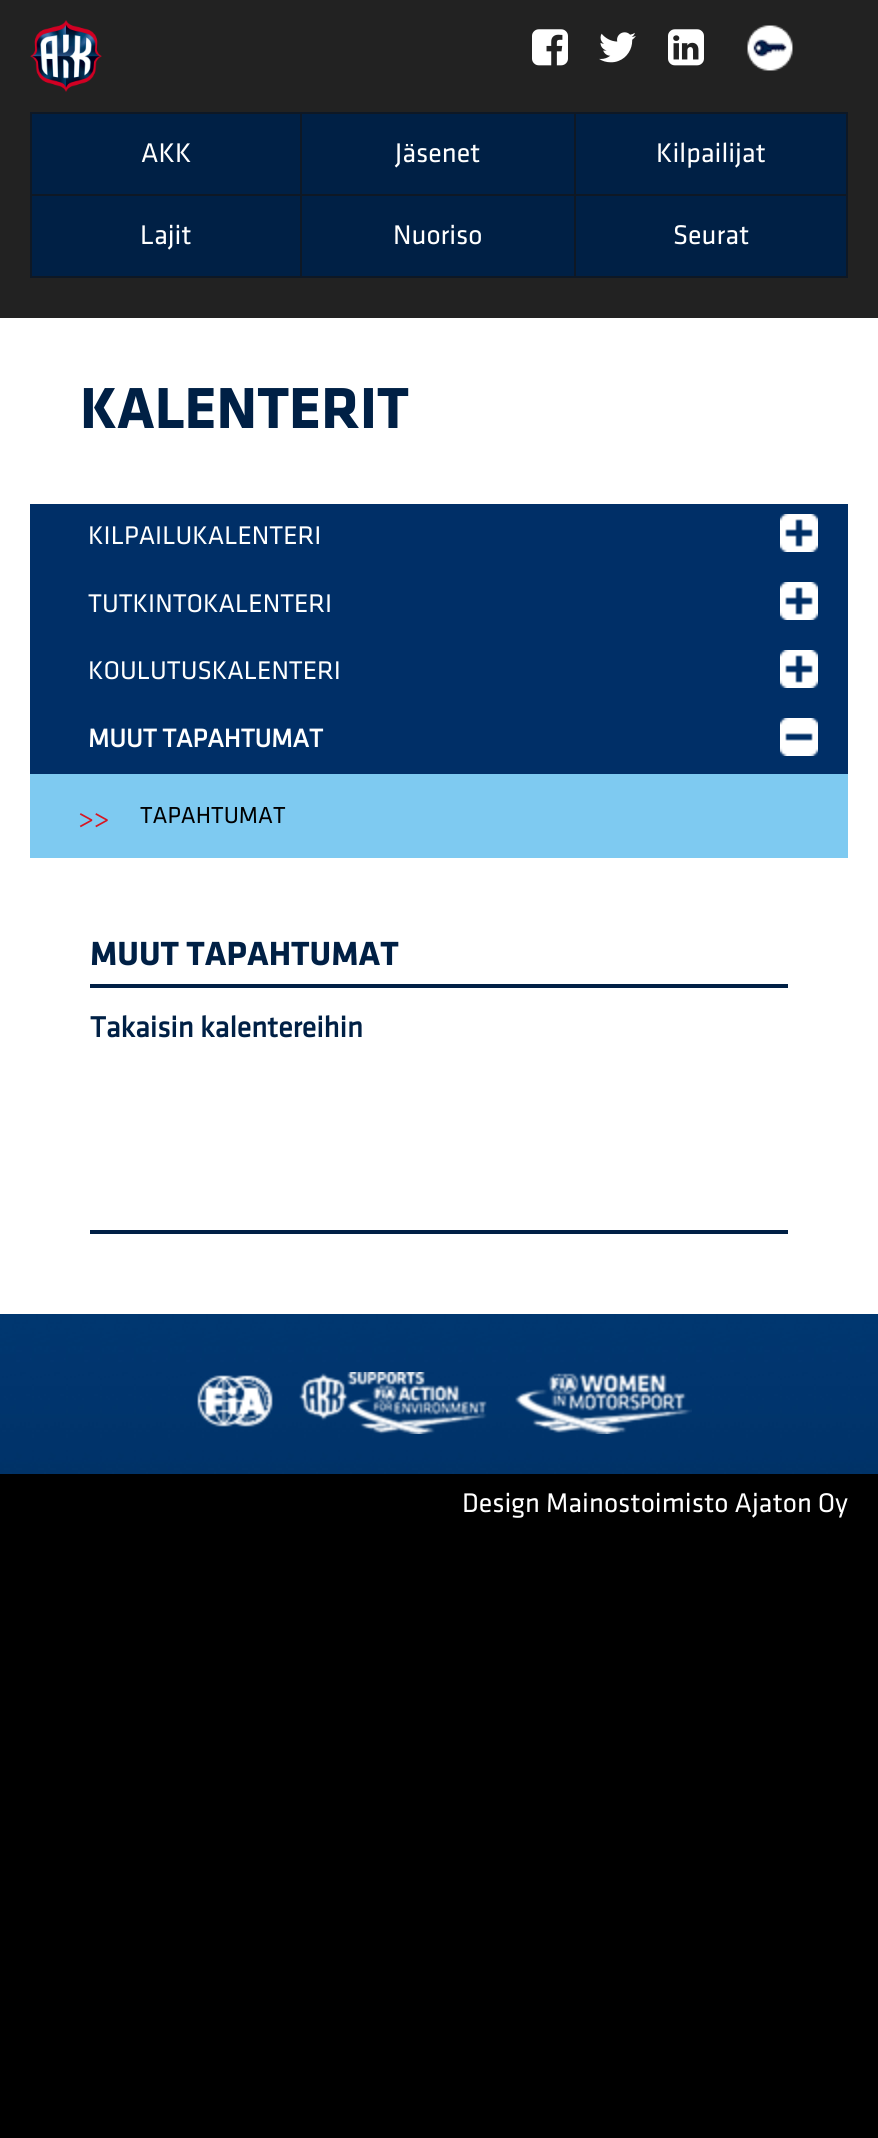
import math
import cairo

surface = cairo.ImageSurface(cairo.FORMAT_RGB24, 878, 2138)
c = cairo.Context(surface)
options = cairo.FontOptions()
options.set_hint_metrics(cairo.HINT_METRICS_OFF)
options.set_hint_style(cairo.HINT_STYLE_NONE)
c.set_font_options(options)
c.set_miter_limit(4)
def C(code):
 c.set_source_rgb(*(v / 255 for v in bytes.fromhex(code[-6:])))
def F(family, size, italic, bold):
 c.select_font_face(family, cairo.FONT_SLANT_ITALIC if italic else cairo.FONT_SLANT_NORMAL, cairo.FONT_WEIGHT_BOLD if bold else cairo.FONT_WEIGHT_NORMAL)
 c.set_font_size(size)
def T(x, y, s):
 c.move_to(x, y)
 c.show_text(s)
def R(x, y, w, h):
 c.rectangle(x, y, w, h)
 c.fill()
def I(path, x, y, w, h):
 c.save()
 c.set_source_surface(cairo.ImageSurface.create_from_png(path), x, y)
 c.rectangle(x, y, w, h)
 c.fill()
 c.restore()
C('000000')
c.paint()
C('222222')
R(0,0,878,318)
I('1.png',30,20,72,72)
I('2.png',532,29,36,37)
I('3.png',599,32,37,31)
I('4.png',668,29,36,37)
I('5.png',747,25,46,46)
C('002045')
c.rectangle(31,113,270,82)
c.fill_preserve()
C('0e1825')
c.stroke()
F('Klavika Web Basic',28,0,0)
C('ffffff')
T(141,162,'AKK')
C('002045')
R(302,114,272,80)
C('0e1825')
R(302,112,546,2)
R(574,112,2,166)
R(302,194,274,2)
C('ffffff')
T(395,162,'Jäsenet')
C('002045')
R(576,114,270,80)
C('0e1825')
R(846,112,2,166)
R(576,194,272,2)
C('ffffff')
T(656,162,'Kilpailijat')
C('002045')
R(32,196,268,80)
C('0e1825')
R(300,196,2,82)
R(30,276,818,2)
R(30,196,2,82)
C('ffffff')
T(140,244,'Lajit')
C('002045')
R(302,196,272,80)
C('ffffff')
T(393,244,'Nuoriso')
C('002045')
R(576,196,270,80)
C('ffffff')
T(673,244,'Seurat')
R(0,318,878,996)
F('Klavika Web Basic',60,0,1)
C('002045')
T(80,428,'KALENTERIT')
C('002f67')
R(30,504,818,270)
F('Klavika Web Basic',26.5,0,0)
C('ffffff')
T(88,544,'KILPAILUKALENTERI')
I('6.png',780,514,38,38)
T(88,612,'TUTKINTOKALENTERI')
I('6.png',780,582,38,38)
T(88,679,'KOULUTUSKALENTERI')
I('6.png',780,650,38,38)
F('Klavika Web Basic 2',26.5,0,1)
T(88,747,'MUUT TAPAHTUMAT')
I('7.png',780,718,38,38)
C('7ecaf1')
R(30,774,818,84)
F('Klavika Web Basic',28,0,0)
C('d71622')
T(78,827,'>>')
F('Klavika Web Basic',24,0,0)
C('000000')
T(140,823,'TAPAHTUMAT')
C('002045')
R(90,984,698,4)
F('Klavika Web Basic',34.75,0,1)
T(90,965,'MUUT TAPAHTUMAT')
R(90,1230,698,4)
F('Klavika Web Basic 2',30,0,1)
T(90,1037,'Takaisin kalentereihin')
I('8.png',0,1314,878,160)
I('9.png',197,1372,495,62)
F('Klavika Web Basic',28,0,0)
C('ffffff')
T(462,1512,'Design Mainostoimisto Ajaton Oy')
surface.write_to_png('o.png')
